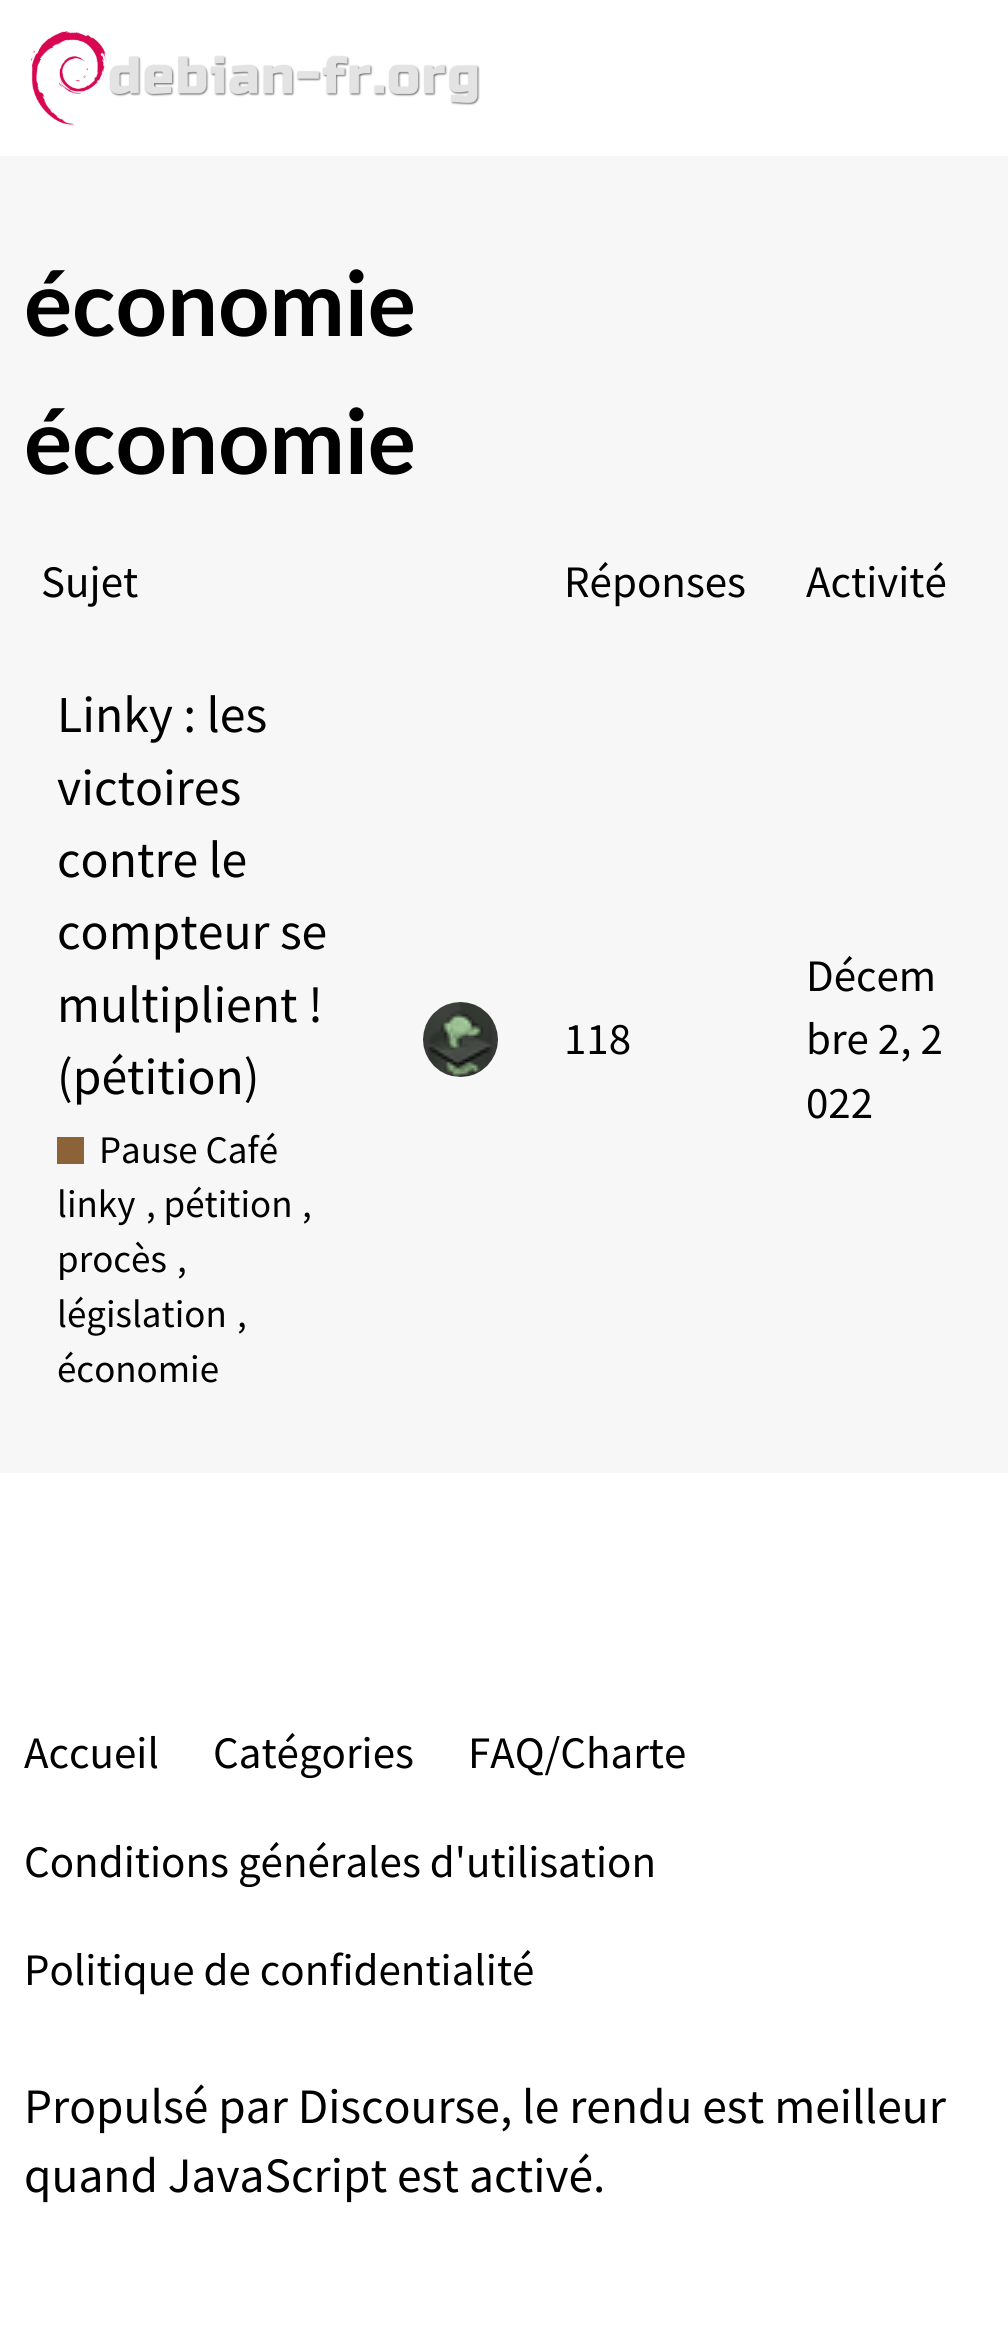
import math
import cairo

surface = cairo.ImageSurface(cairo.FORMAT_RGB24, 1008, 2340)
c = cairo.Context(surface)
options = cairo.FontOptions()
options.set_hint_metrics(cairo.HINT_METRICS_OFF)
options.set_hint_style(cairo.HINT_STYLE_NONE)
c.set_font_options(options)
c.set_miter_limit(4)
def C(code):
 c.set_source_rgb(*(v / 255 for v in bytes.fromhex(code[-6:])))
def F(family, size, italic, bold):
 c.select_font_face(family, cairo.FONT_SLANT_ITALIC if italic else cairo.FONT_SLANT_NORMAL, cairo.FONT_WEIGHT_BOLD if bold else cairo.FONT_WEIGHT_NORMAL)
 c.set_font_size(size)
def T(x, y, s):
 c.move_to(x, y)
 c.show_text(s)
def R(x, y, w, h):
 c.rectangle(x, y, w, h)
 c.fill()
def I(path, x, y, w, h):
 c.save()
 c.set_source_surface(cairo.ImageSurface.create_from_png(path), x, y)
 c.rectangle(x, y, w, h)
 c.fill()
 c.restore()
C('ffffff')
c.paint()
I('1.png',31,30,449,96)
C('f7f7f7')
R(0,156,1008,1317)
F('Lato',90,0,1)
C('000000')
T(24,336,'économie')
T(24,474,'économie')
F('Source Sans Pro',45,0,0)
T(41,597,'Sujet')
T(564,597,'Réponses')
T(806,597,'Activité')
F('Source Sans Pro',51.75,0,0)
T(57,732,'Linky : les')
T(57,805,'victoires')
T(57,877,'contre le')
T(57,949,'compteur se')
T(57,1022,'multiplient !')
T(57,1094,'(pétition)')
C('8c6238')
R(57,1137,27,27)
F('Source Sans Pro',39,0,0)
C('000000')
T(99,1163,'Pause Café')
T(57,1217,'linky')
T(146,1217,', pétition')
T(302,1217,',')
T(57,1272,'procès')
T(177,1272,',')
T(57,1327,'législation')
T(237,1327,',')
T(57,1382,'économie')
I('2.png',423,1002,75,75)
F('Source Sans Pro',45,0,0)
T(564,1054,'118')
T(806,991,'Décem')
T(806,1054,'bre 2, 2')
T(806,1118,'022')
T(24,1768,'Accueil')
T(213,1768,'Catégories')
T(468,1768,'FAQ/Charte')
T(24,1877,'Conditions générales d\'utilisation')
T(24,1985,'Politique de confidentialité')
F('Source Sans Pro',49.5,0,0)
T(24,2123,'Propulsé par Discourse, le rendu est meilleur')
T(24,2192,'quand JavaScript est activé.')
surface.write_to_png('o.png')
